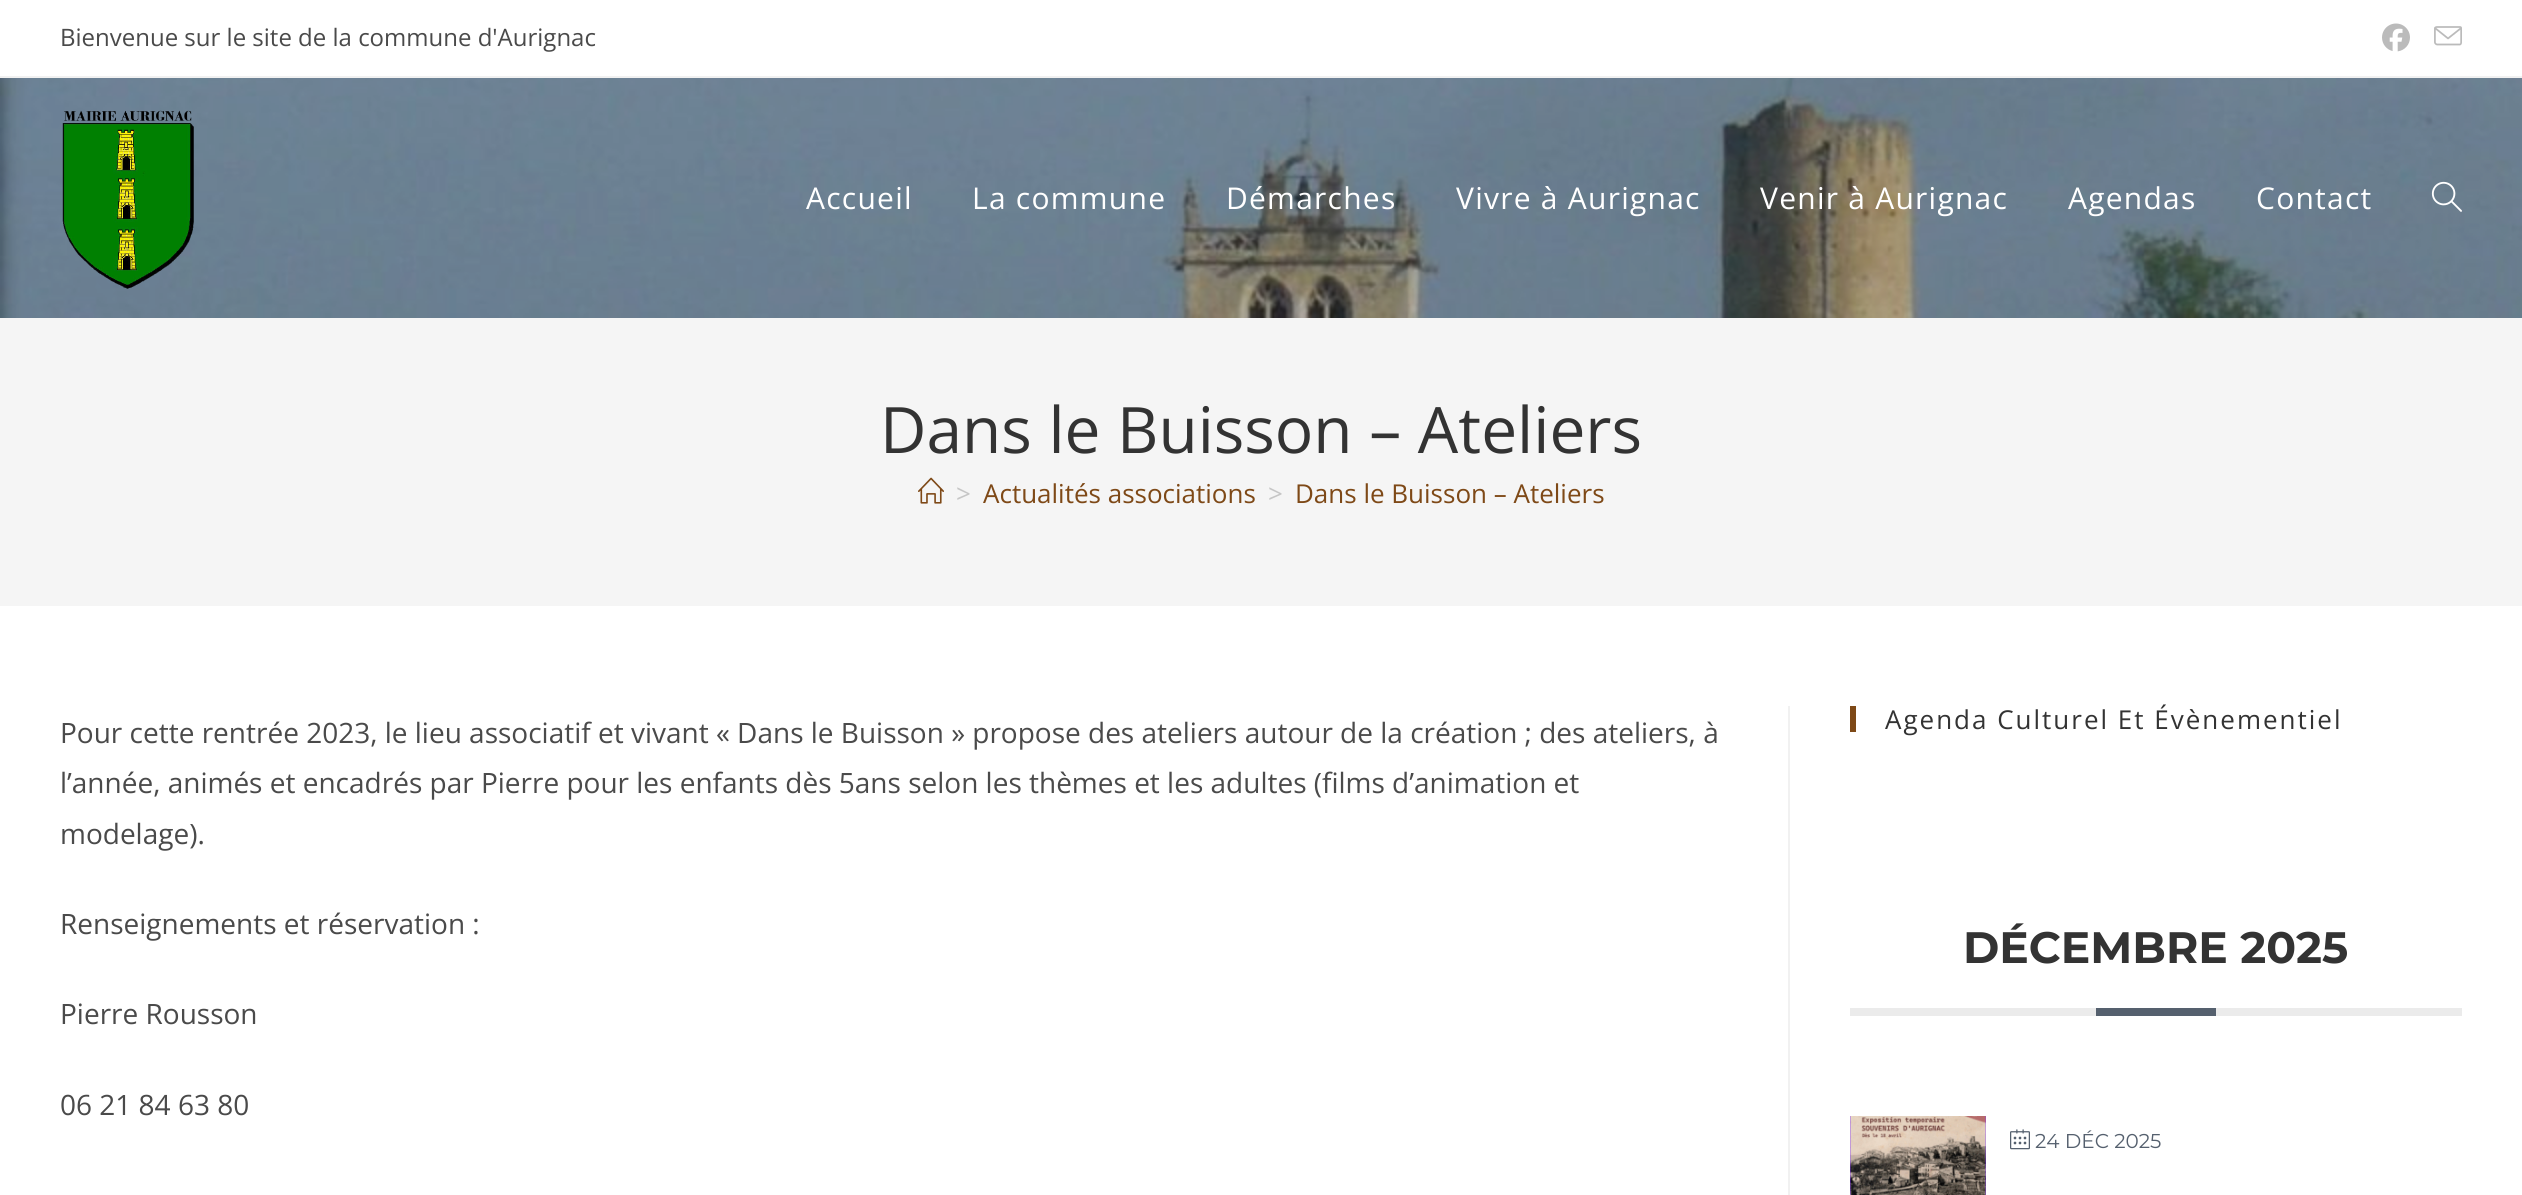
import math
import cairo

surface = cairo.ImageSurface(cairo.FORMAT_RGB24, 2522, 1195)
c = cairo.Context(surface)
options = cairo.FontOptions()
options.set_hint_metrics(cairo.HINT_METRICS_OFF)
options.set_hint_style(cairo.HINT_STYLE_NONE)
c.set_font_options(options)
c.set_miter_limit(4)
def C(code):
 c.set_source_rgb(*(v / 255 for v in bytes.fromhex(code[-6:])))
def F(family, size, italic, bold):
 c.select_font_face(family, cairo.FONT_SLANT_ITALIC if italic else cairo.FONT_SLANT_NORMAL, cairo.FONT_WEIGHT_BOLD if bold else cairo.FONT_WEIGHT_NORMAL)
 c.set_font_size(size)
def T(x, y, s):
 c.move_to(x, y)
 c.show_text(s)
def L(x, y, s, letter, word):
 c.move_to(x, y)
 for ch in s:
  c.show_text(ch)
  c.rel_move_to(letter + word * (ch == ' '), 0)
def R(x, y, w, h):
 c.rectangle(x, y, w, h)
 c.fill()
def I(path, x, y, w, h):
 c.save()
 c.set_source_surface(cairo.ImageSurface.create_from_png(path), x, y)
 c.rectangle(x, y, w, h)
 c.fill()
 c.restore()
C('ffffff')
c.paint()
C('f1f1f1')
R(0,76,2522,2)
F('Open Sans',24,0,0)
C('4a4a4a')
T(60,46,'Bienvenue sur le site de la commune d\'Aurignac')
I('1.png',2382,23,28,29)
I('2.png',2434,26,28,20)
I('3.png',0,78,2522,240)
I('4.png',62,110,132,179)
F('Open Sans',30,0,0)
C('ffffff')
L(806,209,'Accueil',1.25,0)
L(972,209,'La commune',1.25,0)
L(1226,209,'Démarches',1.25,0)
L(1456,209,'Vivre à Aurignac',1.25,0)
L(1760,209,'Venir à Aurignac',1.25,0)
L(2068,209,'Agendas',1.25,0)
L(2256,209,'Contact',1.25,0)
I('5.png',2431,181,31,31)
C('f5f5f5')
R(0,318,2522,288)
F('Open Sans',64,0,0)
C('333333')
T(880,453,'Dans le Buisson – Ateliers')
I('6.png',918,477,26,27)
F('Open Sans',26,0,0)
C('c6c6c6')
T(956,503,'>')
C('7e4917')
T(983,503,'Actualités associations')
C('c6c6c6')
T(1268,503,'>')
C('7e4917')
T(1295,503,'Dans le Buisson – Ateliers')
C('f1f1f1')
R(1788,706,2,489)
F('Open Sans',28,0,0)
C('4a4a4a')
T(60,743,'Pour cette rentrée 2023, le lieu associatif et vivant « Dans le Buisson » propose des ateliers autour de la création ; des ateliers, à')
T(60,793,'l’année, animés et encadrés par Pierre pour les enfants dès 5ans selon les thèmes et les adultes (films d’animation et')
T(60,844,'modelage).')
T(60,934,'Renseignements et réservation :')
T(60,1024,'Pierre Rousson')
T(60,1115,'06 21 84 63 80')
C('7e4917')
R(1850,706,6,26)
F('Open Sans',26,0,0)
C('333333')
L(1885,729,'Agenda Culturel Et Évènementiel',2,0)
C('ebebeb')
R(1850,1008,612,8)
F('Montserrat',44,0,1)
C('333333')
T(1963,963,'DÉCEMBRE 2025')
C('55606e')
R(2096,1008,120,8)
I('7.png',1850,1116,136,79)
I('8.png',2010,1129,20,21)
F('Montserrat',20,0,0)
T(2035,1148,'24 DÉC 2025')
surface.write_to_png('o.png')
